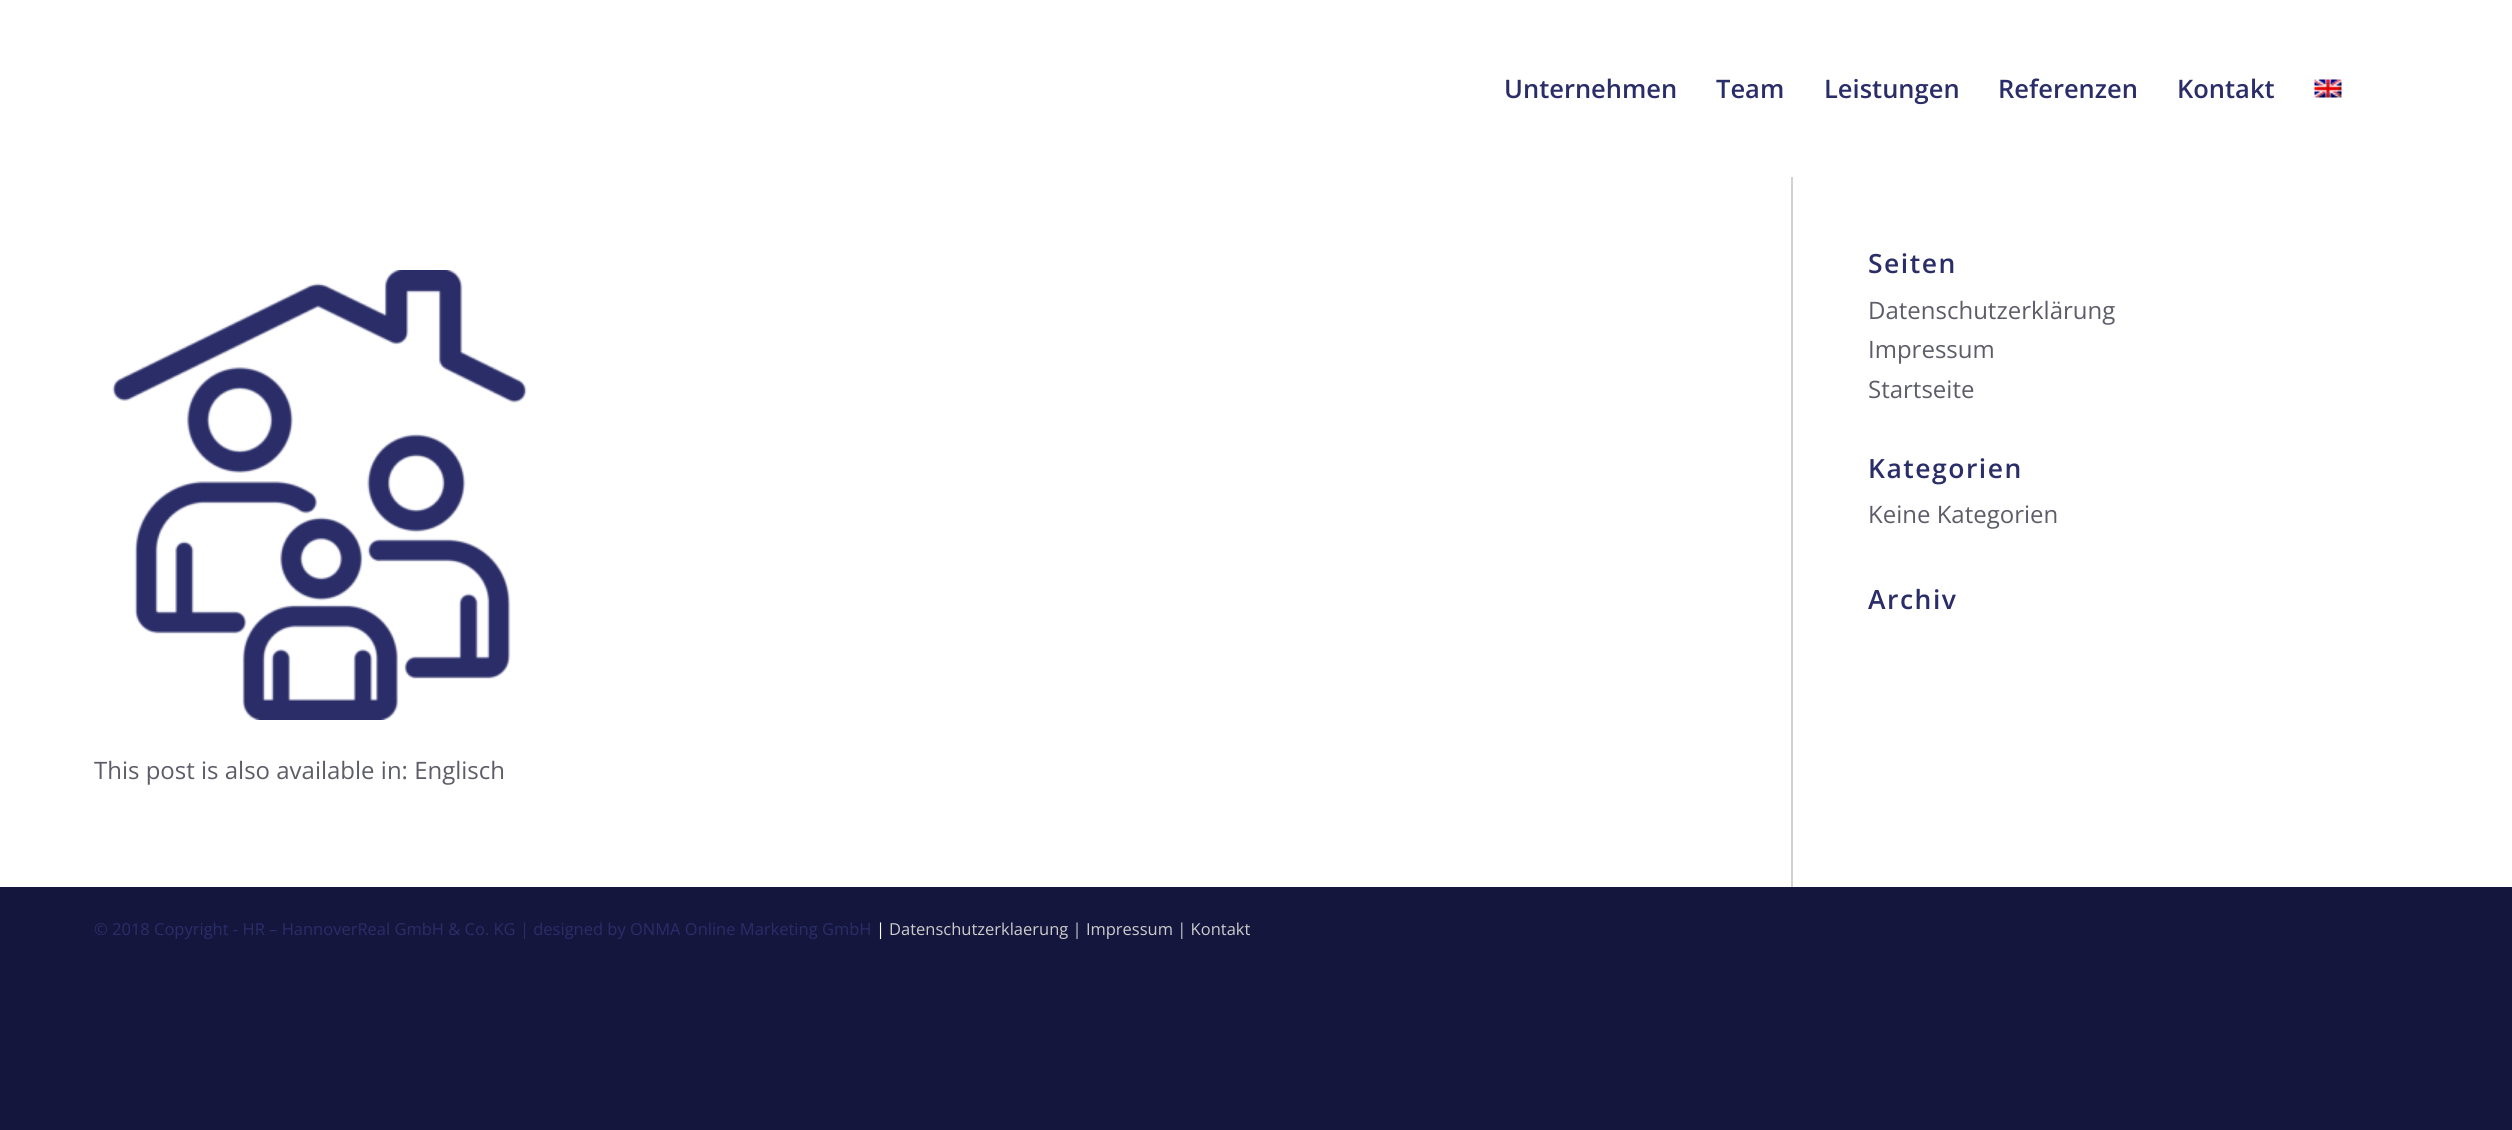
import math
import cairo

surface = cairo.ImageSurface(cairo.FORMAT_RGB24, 2512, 1130)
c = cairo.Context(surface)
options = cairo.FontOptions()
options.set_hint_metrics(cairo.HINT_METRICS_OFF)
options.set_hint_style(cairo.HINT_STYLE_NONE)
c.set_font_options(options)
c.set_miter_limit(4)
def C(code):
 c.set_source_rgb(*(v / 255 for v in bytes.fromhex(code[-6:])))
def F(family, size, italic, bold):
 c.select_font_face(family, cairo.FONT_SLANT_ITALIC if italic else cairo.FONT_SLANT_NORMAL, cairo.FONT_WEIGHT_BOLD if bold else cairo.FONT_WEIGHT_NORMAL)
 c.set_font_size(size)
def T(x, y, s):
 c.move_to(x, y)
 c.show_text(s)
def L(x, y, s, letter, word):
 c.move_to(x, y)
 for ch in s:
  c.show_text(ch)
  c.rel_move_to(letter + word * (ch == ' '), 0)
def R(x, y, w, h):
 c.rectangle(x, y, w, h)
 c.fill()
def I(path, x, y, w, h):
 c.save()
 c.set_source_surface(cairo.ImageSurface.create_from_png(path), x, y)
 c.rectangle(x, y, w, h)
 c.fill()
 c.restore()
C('14163d')
c.paint()
C('ffffff')
R(0,177,2512,710)
C('d2d2d2')
R(1791,174,2,713)
C('ffffff')
R(0,0,2512,177)
F('Open Sans SemiBold',25.5,0,0)
C('2a2d68')
T(1504,98,'Unternehmen')
T(1716,98,'Team')
T(1824,98,'Leistungen')
T(1998,98,'Referenzen')
T(2177,98,'Kontakt')
I('1.png',2314,79,28,19)
F('Open Sans SemiBold',26.5,0,0)
L(1868,273,'Seiten',1.5,0)
F('Open Sans',24,0,0)
C('5d5d69')
T(1868,319,'Datenschutzerklärung')
T(1868,358,'Impressum')
T(1868,398,'Startseite')
F('Open Sans SemiBold',26.5,0,0)
C('2a2d68')
L(1868,478,'Kategorien',1.5,0)
F('Open Sans',24,0,0)
C('5d5d69')
T(1868,523,'Keine Kategorien')
F('Open Sans SemiBold',26.5,0,0)
C('2a2d68')
L(1868,609,'Archiv',1.5,0)
I('2.png',112,270,415,450)
F('Open Sans',24,0,0)
C('5d5d69')
T(94,779,'This post is also available in: Englisch')
F('Open Sans',16.5,0,0)
C('2a2d68')
T(94,935,'© 2018 Copyright - HR – HannoverReal GmbH & Co. KG | designed by ONMA Online Marketing GmbH')
C('ffffff')
T(876,935,'|')
C('cccccc')
T(889,935,'Datenschutzerklaerung | Impressum | Kontakt')
surface.write_to_png('o.png')
